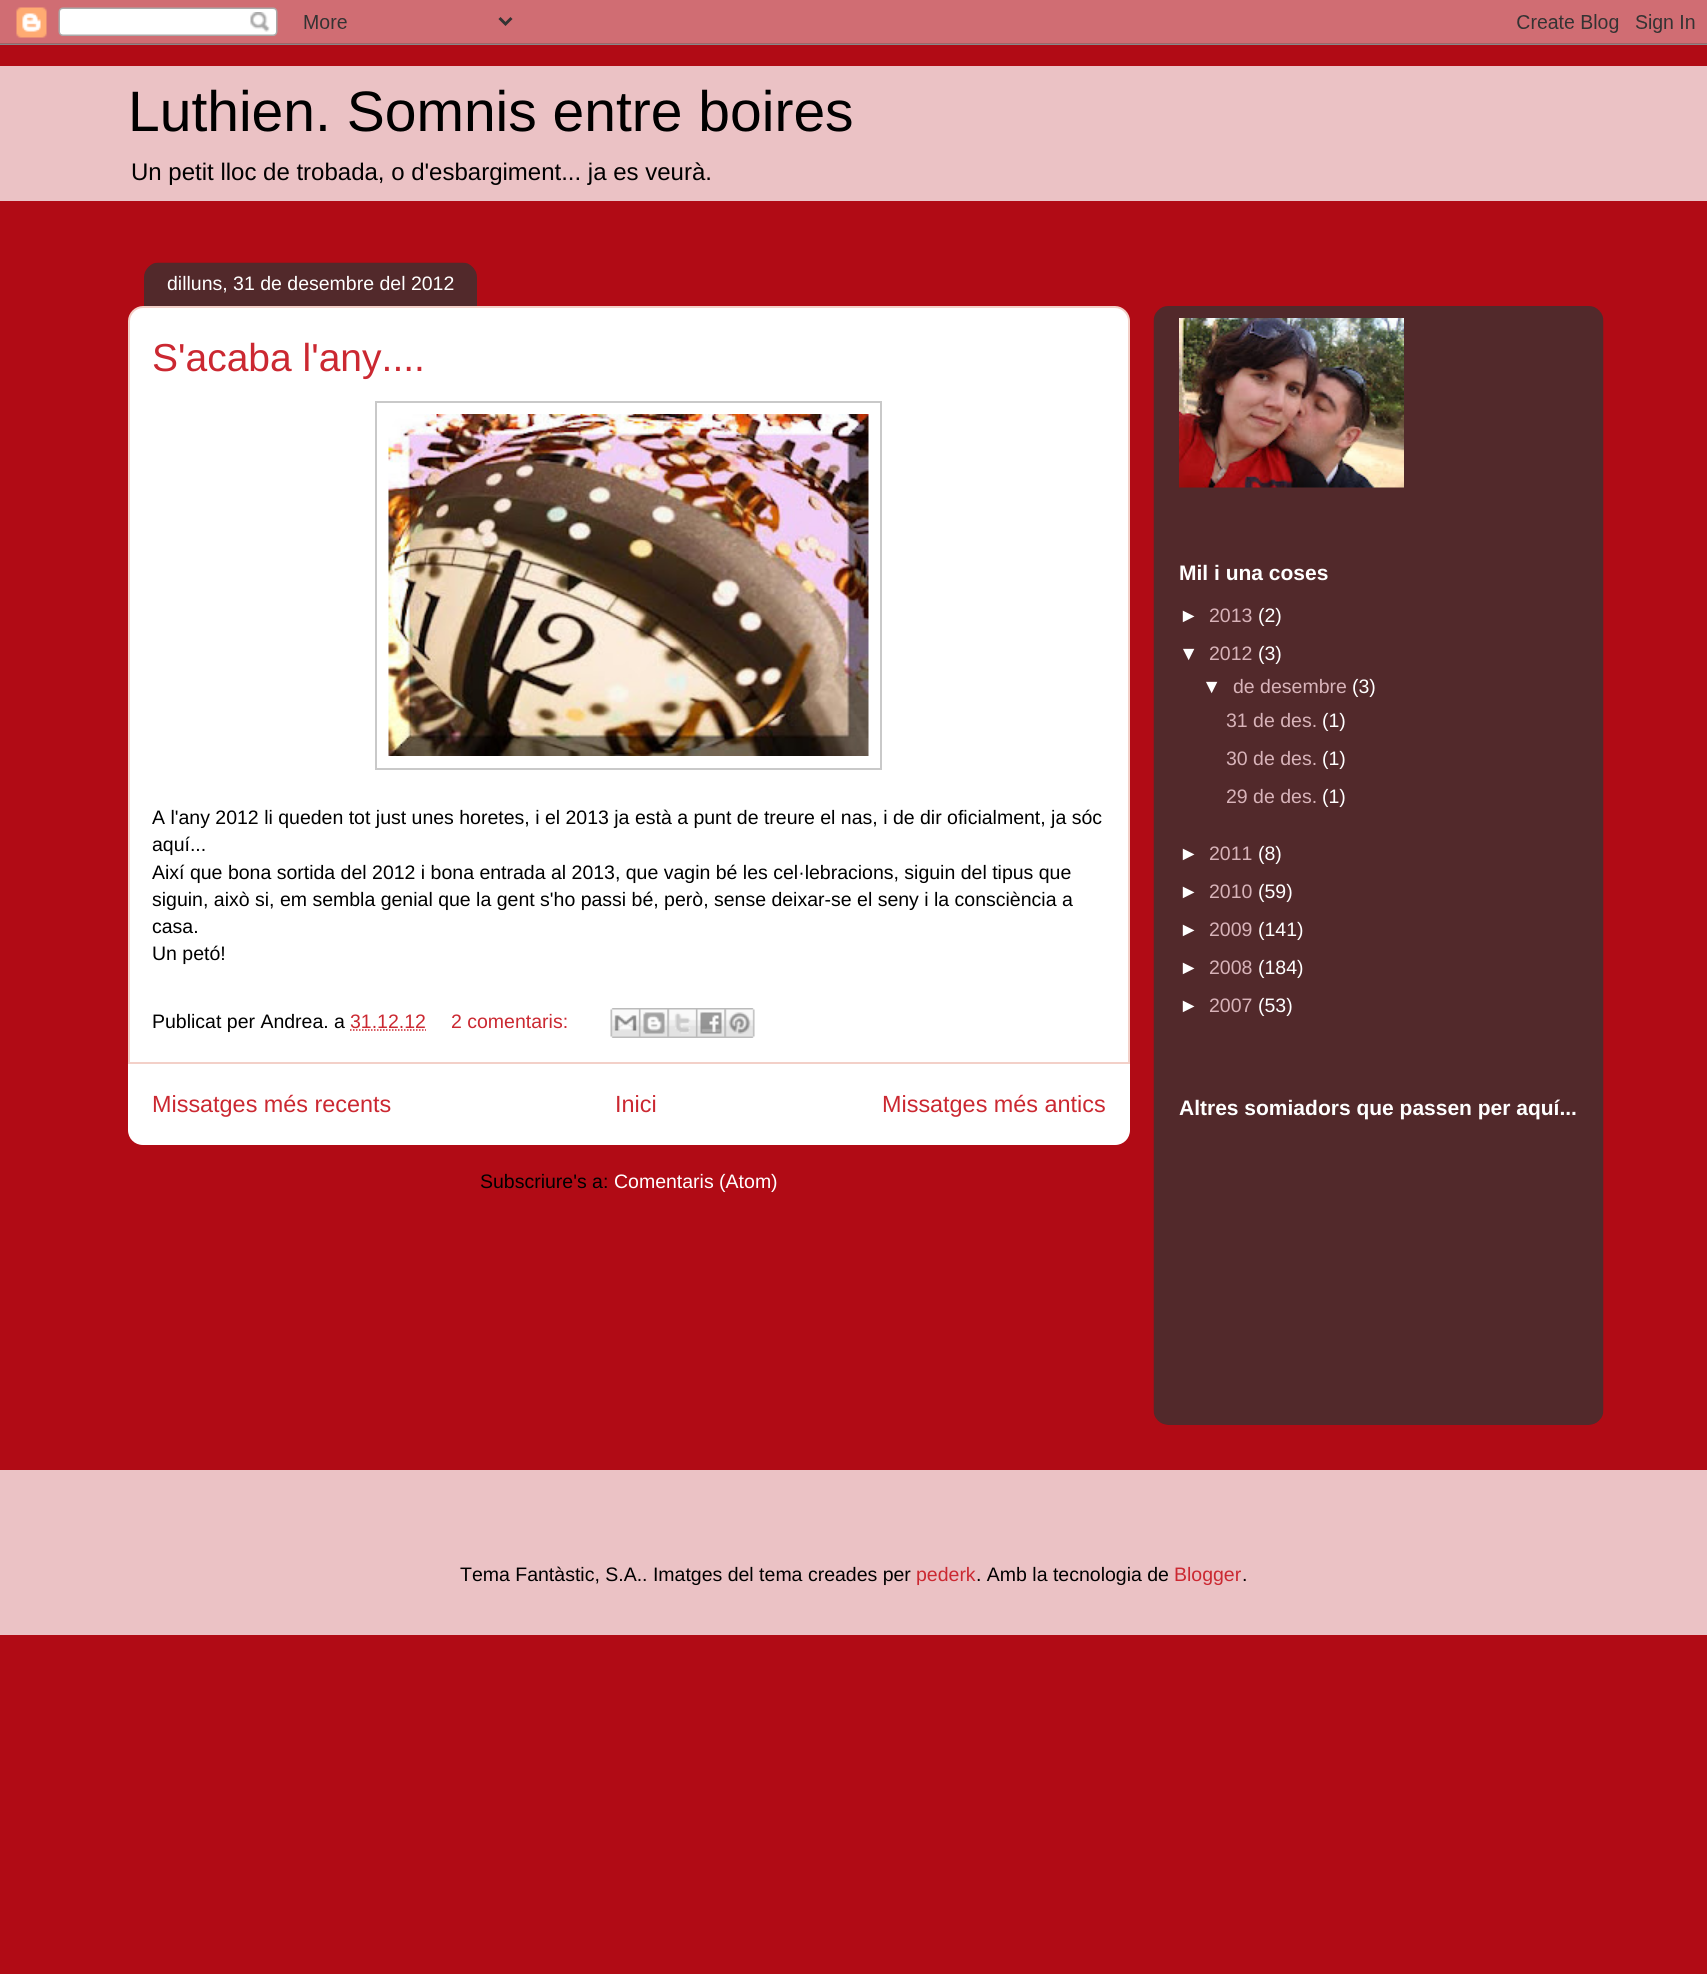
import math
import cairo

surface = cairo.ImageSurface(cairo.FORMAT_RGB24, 1707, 1974)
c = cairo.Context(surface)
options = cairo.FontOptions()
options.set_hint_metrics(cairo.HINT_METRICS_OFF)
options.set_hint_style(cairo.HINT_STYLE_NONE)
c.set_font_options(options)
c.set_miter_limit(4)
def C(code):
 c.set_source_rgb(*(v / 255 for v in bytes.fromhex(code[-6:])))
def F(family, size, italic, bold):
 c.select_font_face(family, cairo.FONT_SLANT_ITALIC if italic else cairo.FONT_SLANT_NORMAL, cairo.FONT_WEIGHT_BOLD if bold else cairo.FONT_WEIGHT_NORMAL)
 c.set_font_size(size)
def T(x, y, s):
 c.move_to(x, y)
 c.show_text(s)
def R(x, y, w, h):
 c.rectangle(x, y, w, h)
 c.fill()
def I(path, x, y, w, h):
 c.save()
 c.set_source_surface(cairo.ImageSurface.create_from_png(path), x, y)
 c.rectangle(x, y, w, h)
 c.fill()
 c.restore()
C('b10b15')
c.paint()
I('1.png',0,0,1707,45)
C('ebc2c5')
R(0,66,1707,135)
F('Liberation Sans',57,0,0)
C('000000')
T(128,131,'Luthien. Somnis entre boires')
F('Liberation Sans',24,0,0)
T(131,180,'Un petit lloc de trobada, o d\'esbargiment... ja es veurà.')
C('ffffff')
c.new_path()
c.move_to(143,307)
c.line_to(1115,307)
c.curve_to(1122.5,307,1129,313.5,1129,321)
c.line_to(1129,1063)
c.line_to(129,1063)
c.line_to(129,321)
c.curve_to(129,313.5,135.5,307,143,307)
c.close_path()
c.fill_preserve()
C('f3d0c8')
c.stroke()
I('2.png',144,262,333,44)
F('Liberation Sans',19.5,0,0)
C('ffffff')
T(167,290,'dilluns, 31 de desembre del 2012')
F('Liberation Sans',39,0,0)
C('cb2831')
T(152,371,'S\'acaba l\'any....')
c.rectangle(376,402,505,367)
C('c9c9c9')
c.stroke()
I('3.png',388,414,481,342)
F('Liberation Sans',19.5,0,0)
C('000000')
T(152,824,'A l\'any 2012 li queden tot just unes horetes, i el 2013 ja està a punt de treure el nas, i de dir oficialment, ja sóc')
T(152,851,'aquí...')
T(152,879,'Així que bona sortida del 2012 i bona entrada al 2013, que vagin bé les cel·lebracions, siguin del tipus que')
T(152,906,'siguin, això si, em sembla genial que la gent s\'ho passi bé, però, sense deixar-se el seny i la consciència a')
T(152,933,'casa.')
T(152,960,'Un petó!')
T(152,1028,'Publicat per Andrea. a')
C('cb2831')
T(350,1028,'31.12.12')
c.new_path()
c.move_to(350,1030)
c.line_to(426,1030)
c.set_line_width(1.5)
c.set_dash([1.5,1.5])
c.stroke()
T(451,1028,'2 comentaris:')
I('4.png',610,1008,29,30)
I('5.png',639,1008,29,30)
I('6.png',667,1008,29,30)
I('7.png',696,1008,29,30)
I('8.png',724,1008,31,30)
C('ffffff')
c.new_path()
c.move_to(128,1064)
c.line_to(1130,1064)
c.line_to(1130,1130)
c.curve_to(1130,1138.5,1123.5,1145,1115,1145)
c.line_to(143,1145)
c.curve_to(134.5,1145,128,1138.5,128,1130)
c.close_path()
c.fill()
F('Liberation Sans',23.4,0,0)
C('cb2831')
T(152,1112,'Missatges més recents')
T(615,1112,'Inici')
T(882,1112,'Missatges més antics')
F('Liberation Sans',19.5,0,0)
C('000000')
T(480,1188,'Subscriure\'s a:')
C('ffffff')
T(614,1188,'Comentaris (Atom)')
I('9.png',1153,306,451,1119)
I('10.png',1179,318,225,170)
F('Liberation Sans',21,0,1)
T(1179,580,'Mil i una coses')
F('Liberation Sans',19.5,0,0)
T(1179,622,'►')
C('d8b3b9')
T(1209,622,'2013')
C('ffffff')
T(1258,622,'(2)')
T(1179,660,'▼')
C('d8b3b9')
T(1209,660,'2012')
C('ffffff')
T(1258,660,'(3)')
T(1202,693,'▼')
C('d8b3b9')
T(1233,693,'de desembre')
C('ffffff')
T(1352,693,'(3)')
C('d8b3b9')
T(1226,727,'31 de des.')
C('ffffff')
T(1322,727,'(1)')
C('d8b3b9')
T(1226,765,'30 de des.')
C('ffffff')
T(1322,765,'(1)')
C('d8b3b9')
T(1226,803,'29 de des.')
C('ffffff')
T(1322,803,'(1)')
T(1179,860,'►')
C('d8b3b9')
T(1209,860,'2011')
C('ffffff')
T(1258,860,'(8)')
T(1179,898,'►')
C('d8b3b9')
T(1209,898,'2010')
C('ffffff')
T(1258,898,'(59)')
T(1179,936,'►')
C('d8b3b9')
T(1209,936,'2009')
C('ffffff')
T(1258,936,'(141)')
T(1179,974,'►')
C('d8b3b9')
T(1209,974,'2008')
C('ffffff')
T(1258,974,'(184)')
T(1179,1012,'►')
C('d8b3b9')
T(1209,1012,'2007')
C('ffffff')
T(1258,1012,'(53)')
F('Liberation Sans',21,0,1)
T(1179,1115,'Altres somiadors que passen per aquí...')
C('ebc2c5')
R(0,1470,1707,165)
F('Liberation Sans',19.5,0,0)
C('000000')
T(460,1581,'Tema Fantàstic, S.A.. Imatges del tema creades per')
C('cb2831')
T(916,1581,'pederk')
C('000000')
T(976,1581,'. Amb la tecnologia de')
C('cb2831')
T(1174,1581,'Blogger')
C('000000')
T(1242,1581,'.')
surface.write_to_png('o.png')
